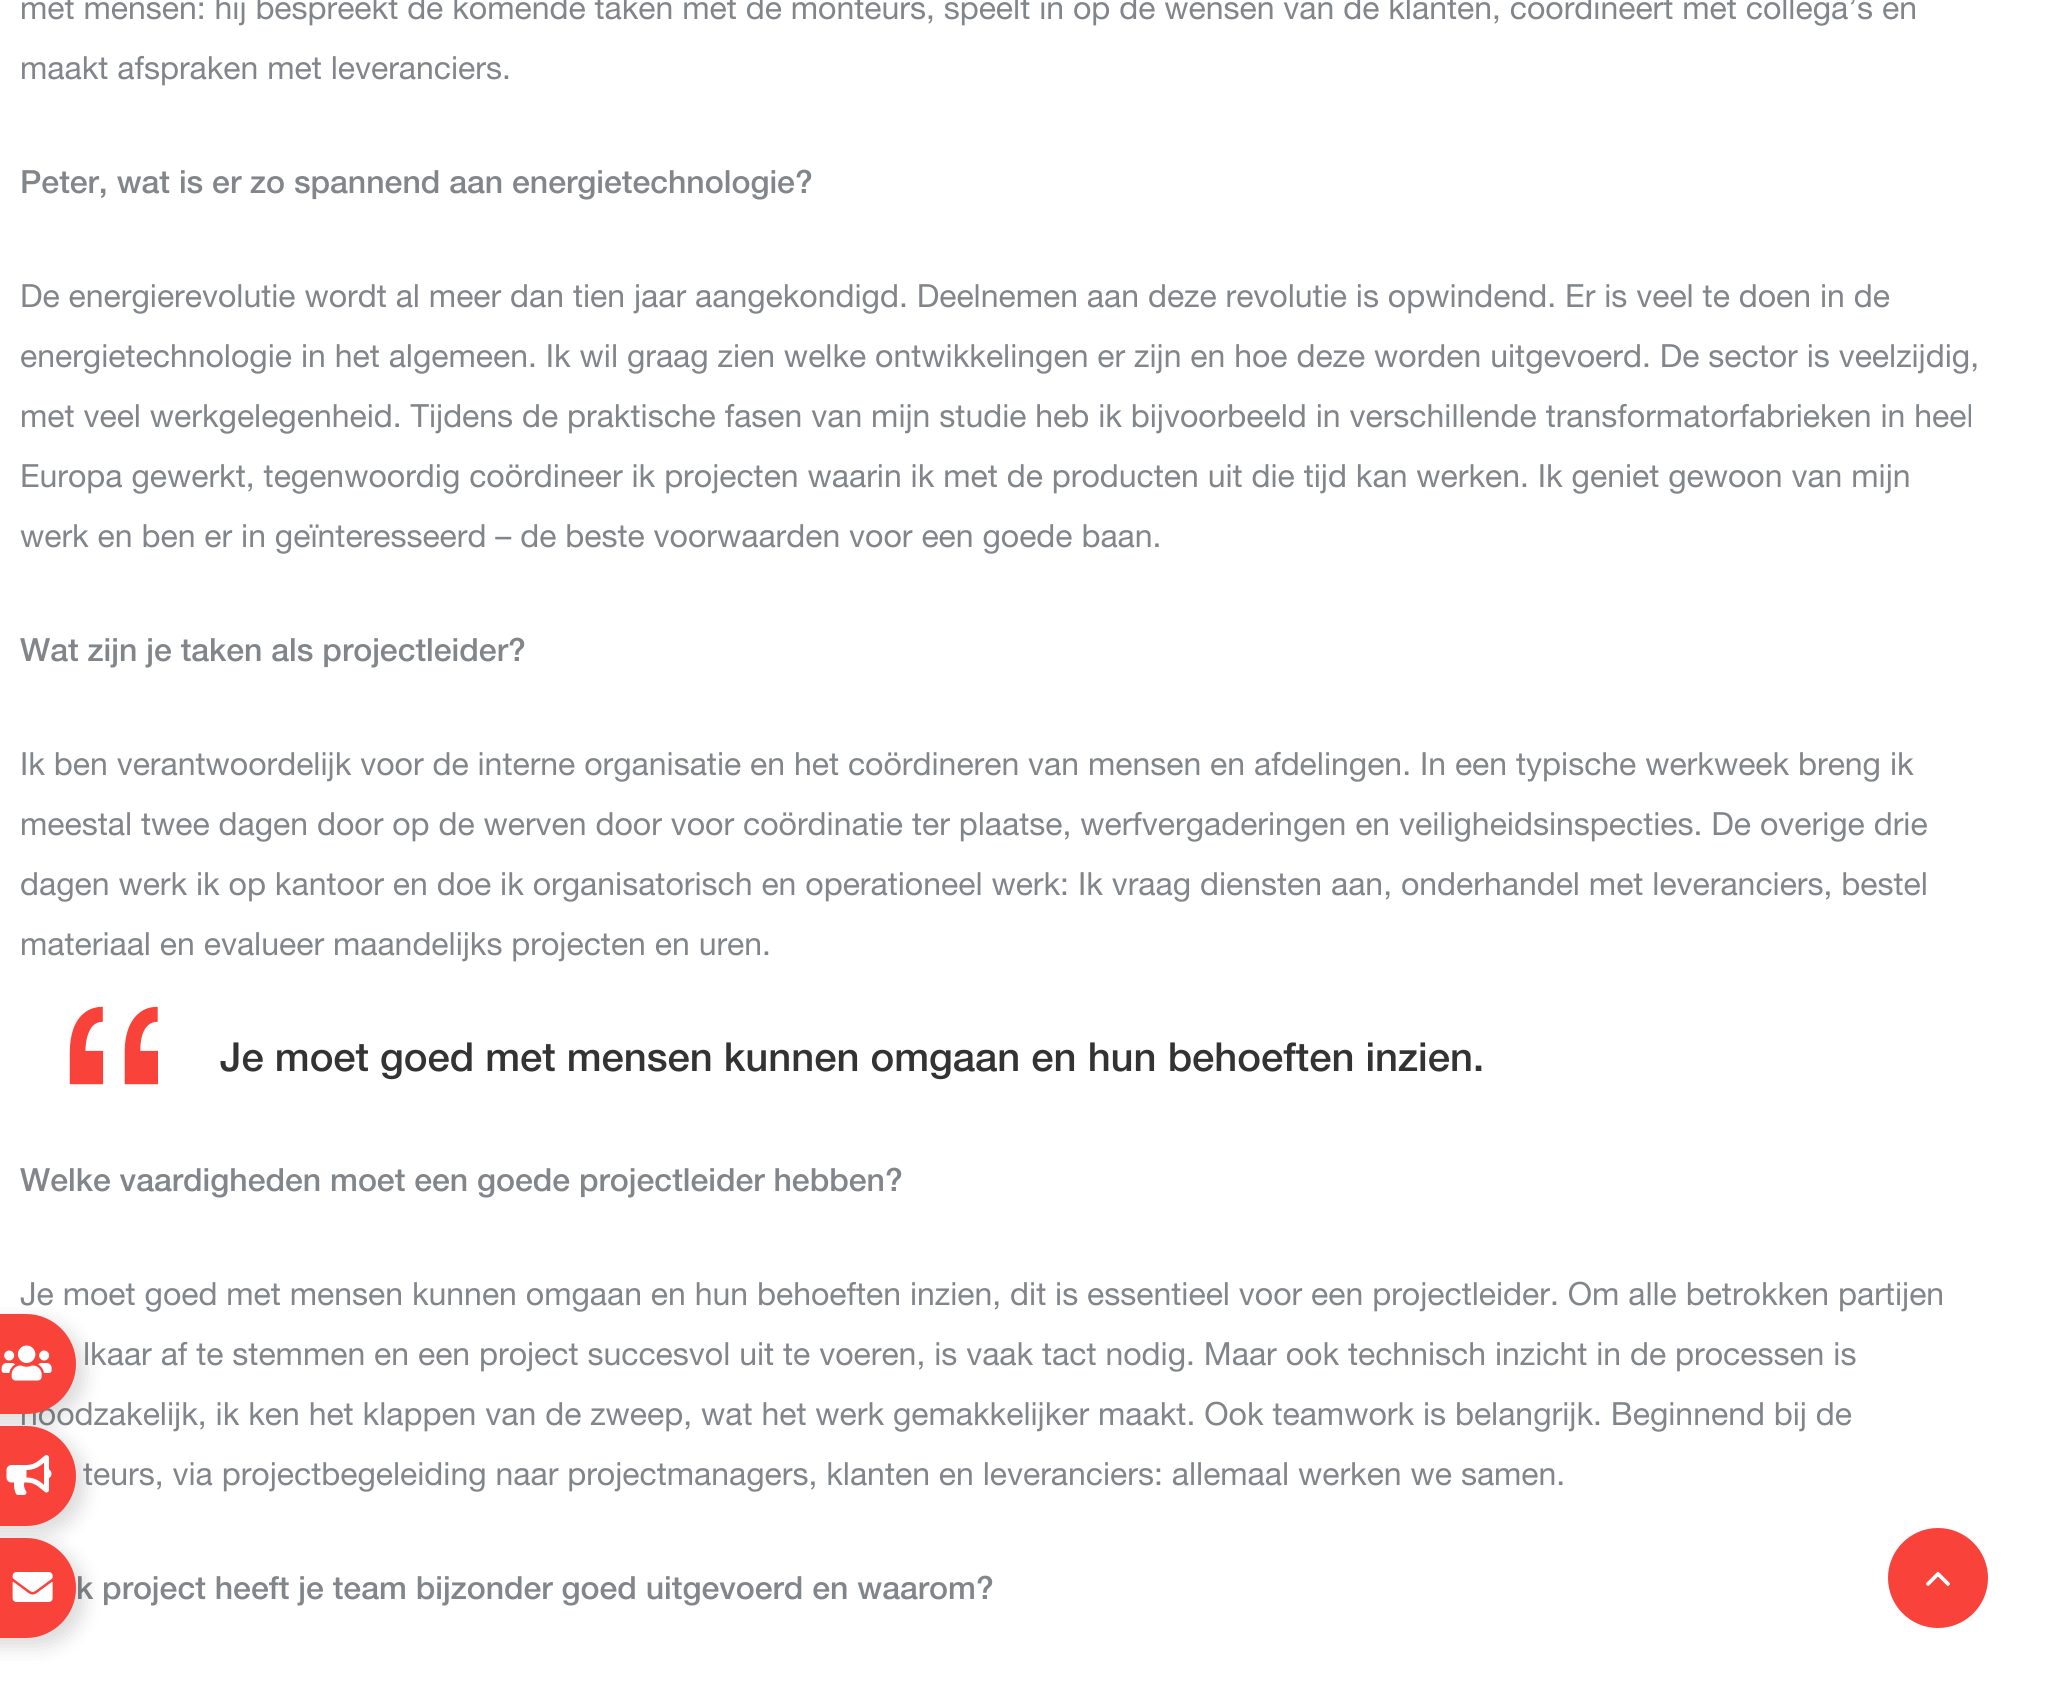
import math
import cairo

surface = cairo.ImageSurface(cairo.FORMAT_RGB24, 2048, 1687)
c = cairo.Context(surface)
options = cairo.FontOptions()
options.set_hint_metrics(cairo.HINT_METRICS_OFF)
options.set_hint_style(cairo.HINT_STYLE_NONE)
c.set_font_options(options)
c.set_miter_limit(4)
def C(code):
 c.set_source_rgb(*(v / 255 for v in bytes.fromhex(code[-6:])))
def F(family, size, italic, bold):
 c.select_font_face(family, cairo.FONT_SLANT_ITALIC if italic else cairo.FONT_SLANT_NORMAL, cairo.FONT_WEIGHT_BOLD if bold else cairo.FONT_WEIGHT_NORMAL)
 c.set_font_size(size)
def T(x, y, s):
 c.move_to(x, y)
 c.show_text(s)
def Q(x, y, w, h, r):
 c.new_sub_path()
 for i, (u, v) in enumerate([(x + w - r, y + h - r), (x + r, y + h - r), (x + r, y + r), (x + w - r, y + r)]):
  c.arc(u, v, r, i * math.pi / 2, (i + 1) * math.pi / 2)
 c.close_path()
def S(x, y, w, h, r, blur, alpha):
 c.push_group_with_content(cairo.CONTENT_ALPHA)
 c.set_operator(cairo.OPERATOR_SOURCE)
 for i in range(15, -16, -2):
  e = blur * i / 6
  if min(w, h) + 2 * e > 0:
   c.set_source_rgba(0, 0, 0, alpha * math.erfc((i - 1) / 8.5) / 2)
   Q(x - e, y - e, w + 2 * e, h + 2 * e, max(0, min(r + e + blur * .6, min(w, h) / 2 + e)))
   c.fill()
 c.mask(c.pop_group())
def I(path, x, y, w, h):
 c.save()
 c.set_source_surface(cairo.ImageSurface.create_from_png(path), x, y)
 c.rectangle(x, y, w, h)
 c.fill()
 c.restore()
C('ffffff')
c.paint()
F('Helvetica Neue',32,0,0)
C('82868a')
T(20,19,'met mensen: hij bespreekt de komende taken met de monteurs, speelt in op de wensen van de klanten, coördineert met collega’s en')
T(20,79,'maakt afspraken met leveranciers.')
F('Helvetica Neue Medium',32,0,0)
T(20,193,'Peter, wat is er zo spannend aan energietechnologie?')
F('Helvetica Neue',32,0,0)
T(20,307,'De energierevolutie wordt al meer dan tien jaar aangekondigd. Deelnemen aan deze revolutie is opwindend. Er is veel te doen in de')
T(20,367,'energietechnologie in het algemeen. Ik wil graag zien welke ontwikkelingen er zijn en hoe deze worden uitgevoerd. De sector is veelzijdig,')
T(20,427,'met veel werkgelegenheid. Tijdens de praktische fasen van mijn studie heb ik bijvoorbeeld in verschillende transformatorfabrieken in heel')
T(20,487,'Europa gewerkt, tegenwoordig coördineer ik projecten waarin ik met de producten uit die tijd kan werken. Ik geniet gewoon van mijn')
T(20,547,'werk en ben er in geïnteresseerd – de beste voorwaarden voor een goede baan.')
F('Helvetica Neue Medium',32,0,0)
T(20,661,'Wat zijn je taken als projectleider?')
F('Helvetica Neue',32,0,0)
T(20,775,'Ik ben verantwoordelijk voor de interne organisatie en het coördineren van mensen en afdelingen. In een typische werkweek breng ik')
T(20,835,'meestal twee dagen door op de werven door voor coördinatie ter plaatse, werfvergaderingen en veiligheidsinspecties. De overige drie')
T(20,895,'dagen werk ik op kantoor en doe ik organisatorisch en operationeel werk: Ik vraag diensten aan, onderhandel met leveranciers, bestel')
T(20,955,'materiaal en evalueer maandelijks projecten en uren.')
F('Helvetica Neue',300,0,0)
C('f9423a')
T(50,1221,'“')
F('Helvetica Neue Medium',40,0,0)
C('333333')
T(220,1071,'Je moet goed met mensen kunnen omgaan en hun behoeften inzien.')
F('Helvetica Neue Medium',32,0,0)
C('82868a')
T(20,1191,'Welke vaardigheden moet een goede projectleider hebben?')
F('Helvetica Neue',32,0,0)
T(20,1305,'Je moet goed met mensen kunnen omgaan en hun behoeften inzien, dit is essentieel voor een projectleider. Om alle betrokken partijen')
T(83,1365,'lkaar af te stemmen en een project succesvol uit te voeren, is vaak tact nodig. Maar ook technisch inzicht in de processen is')
T(20,1425,'noodzakelijk, ik ken het klappen van de zweep, wat het werk gemakkelijker maakt. Ook teamwork is belangrijk. Beginnend bij de')
T(83,1485,'teurs, via projectbegeleiding naar projectmanagers, klanten en leveranciers: allemaal werken we samen.')
F('Helvetica Neue Medium',32,0,0)
T(76,1599,'k project heeft je team bijzonder goed uitgevoerd en waarom?')
C('f9423a')
c.new_path()
c.arc(1938,1578,48,0,2 * math.pi)
c.fill_preserve()
c.set_line_width(4)
c.stroke()
I('1.png',1926,1571,24,15)
C('000000')
S(-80,1322,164,100,50,10,.15)
C('f9423a')
c.new_path()
c.move_to(-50,1314)
c.line_to(26,1314)
c.curve_to(53.5,1314,76,1336.5,76,1364)
c.curve_to(76,1391.5,53.5,1414,26,1414)
c.line_to(-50,1414)
c.close_path()
c.fill()
I('2.png',1,1345,51,36)
C('000000')
S(-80,1434,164,100,50,10,.15)
C('f9423a')
c.new_path()
c.move_to(-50,1426)
c.line_to(26,1426)
c.curve_to(53.5,1426,76,1448.5,76,1476)
c.curve_to(76,1503.5,53.5,1526,26,1526)
c.line_to(-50,1526)
c.close_path()
c.fill()
I('3.png',6,1455,46,40)
C('000000')
S(-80,1546,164,100,50,10,.15)
C('f9423a')
c.new_path()
c.move_to(-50,1538)
c.line_to(26,1538)
c.curve_to(53.5,1538,76,1560.5,76,1588)
c.curve_to(76,1615.5,53.5,1638,26,1638)
c.line_to(-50,1638)
c.close_path()
c.fill()
I('4.png',12,1572,41,30)
surface.write_to_png('o.png')
